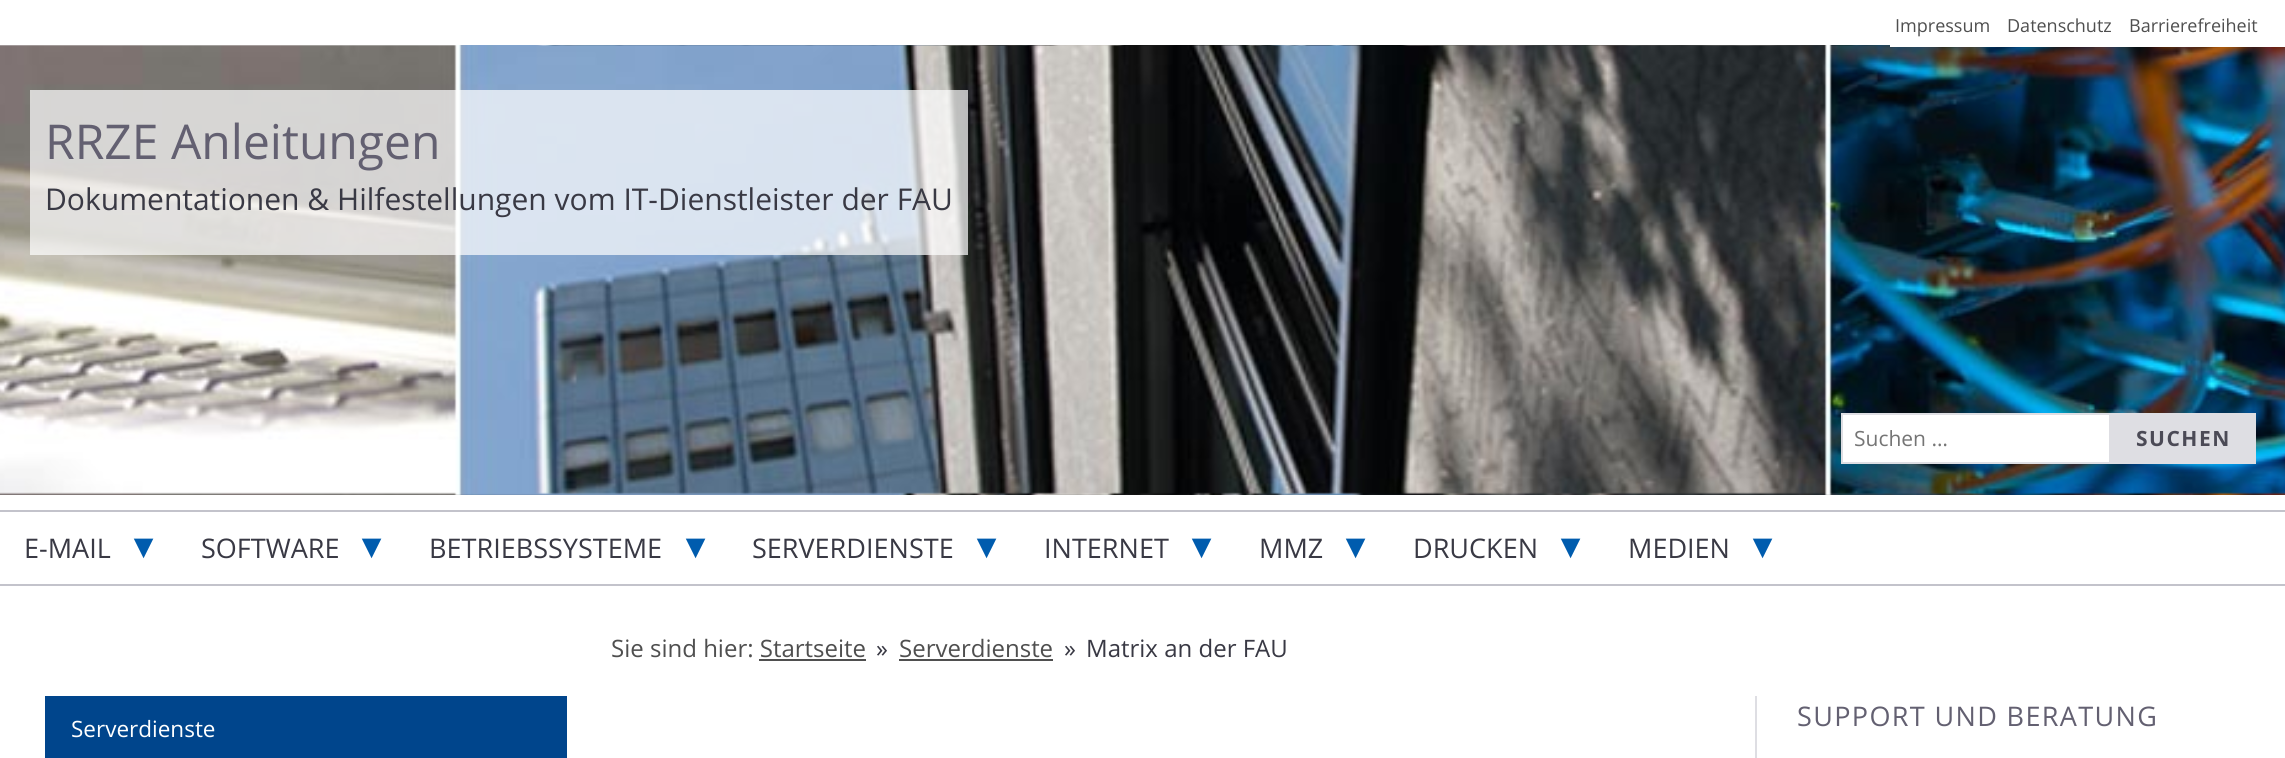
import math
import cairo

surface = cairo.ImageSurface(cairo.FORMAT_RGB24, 2285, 758)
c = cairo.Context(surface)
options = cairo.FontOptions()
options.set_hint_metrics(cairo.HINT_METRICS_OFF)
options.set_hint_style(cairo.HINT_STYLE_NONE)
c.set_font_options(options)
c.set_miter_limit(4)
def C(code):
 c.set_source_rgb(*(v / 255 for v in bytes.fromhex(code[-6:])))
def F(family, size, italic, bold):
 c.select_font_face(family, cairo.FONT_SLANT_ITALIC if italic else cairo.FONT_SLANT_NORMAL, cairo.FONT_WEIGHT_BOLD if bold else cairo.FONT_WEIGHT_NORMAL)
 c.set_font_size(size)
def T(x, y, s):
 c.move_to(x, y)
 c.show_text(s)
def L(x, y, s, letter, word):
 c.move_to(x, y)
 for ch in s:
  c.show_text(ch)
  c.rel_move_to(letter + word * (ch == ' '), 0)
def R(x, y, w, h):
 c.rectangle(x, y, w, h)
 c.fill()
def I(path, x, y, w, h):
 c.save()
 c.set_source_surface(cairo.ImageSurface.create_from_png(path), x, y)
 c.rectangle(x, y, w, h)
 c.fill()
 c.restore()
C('ffffff')
c.paint()
I('1.png',0,45,2285,450)
C('ffffff')
R(1890,45,395,2)
F('Open Sans',18,0,0)
C('4f4f4f')
T(1895,32,'Impressum')
T(2007,32,'Datenschutz')
T(2129,32,'Barrierefreiheit')
c.set_source_rgba(0.2,0.2,0.2,0.1)
R(0,494,2285,1)
c.set_source_rgba(1,1,1,0.7)
R(30,90,938,165)
F('Open Sans',48,0,0)
C('636071')
T(45,159,'RRZE Anleitungen')
F('Open Sans',30,0,0)
C('393944')
T(45,210,'Dokumentationen & Hilfestellungen vom IT-Dienstleister der FAU')
C('ffffff')
c.rectangle(1842,414,268,49)
c.fill_preserve()
C('dedee3')
c.stroke()
F('Open Sans',21,0,0)
C('757575')
T(1854,446,'Suchen …')
C('dedee3')
R(2111,413,145,51)
F('Open Sans',21,0,1)
C('4b4a56')
L(2136,446,'SUCHEN',1.5,0)
C('c3c3cb')
R(0,510,2285,2)
R(0,584,2285,2)
F('Open Sans',27,0,0)
C('393944')
T(24,558,'E-MAIL')
F('DejaVu Sans',36,0,1)
C('005cae')
L(134,558,'▾',1.5,0)
F('Open Sans',27,0,0)
C('393944')
T(201,558,'SOFTWARE')
F('DejaVu Sans',36,0,1)
C('005cae')
L(362,558,'▾',1.5,0)
F('Open Sans',27,0,0)
C('393944')
T(429,558,'BETRIEBSSYSTEME')
F('DejaVu Sans',36,0,1)
C('005cae')
L(686,558,'▾',1.5,0)
F('Open Sans',27,0,0)
C('393944')
T(752,558,'SERVERDIENSTE')
F('DejaVu Sans',36,0,1)
C('005cae')
L(977,558,'▾',1.5,0)
F('Open Sans',27,0,0)
C('393944')
T(1044,558,'INTERNET')
F('DejaVu Sans',36,0,1)
C('005cae')
L(1192,558,'▾',1.5,0)
F('Open Sans',27,0,0)
C('393944')
T(1259,558,'MMZ')
F('DejaVu Sans',36,0,1)
C('005cae')
L(1346,558,'▾',1.5,0)
F('Open Sans',27,0,0)
C('393944')
T(1413,558,'DRUCKEN')
F('DejaVu Sans',36,0,1)
C('005cae')
L(1561,558,'▾',1.5,0)
F('Open Sans',27,0,0)
C('393944')
T(1628,558,'MEDIEN')
F('DejaVu Sans',36,0,1)
C('005cae')
L(1753,558,'▾',1.5,0)
F('Open Sans',24,0,0)
C('4f4f4f')
T(611,657,'Sie sind hier: Startseite')
C('393944')
T(876,657,'»')
C('4f4f4f')
T(899,657,'Serverdienste')
R(899,659,154,2)
C('393944')
T(1064,657,'»')
T(1086,657,'Matrix an der FAU')
C('4f4f4f')
R(759,659,107,2)
C('00458c')
R(45,696,522,62)
F('Open Sans',22.5,0,0)
C('ffffff')
T(71,737,'Serverdienste')
C('dedee3')
R(1755,696,2,62)
F('Open Sans',27,0,0)
C('636071')
L(1797,726,'SUPPORT UND BERATUNG',1.35,0)
surface.write_to_png('o.png')
